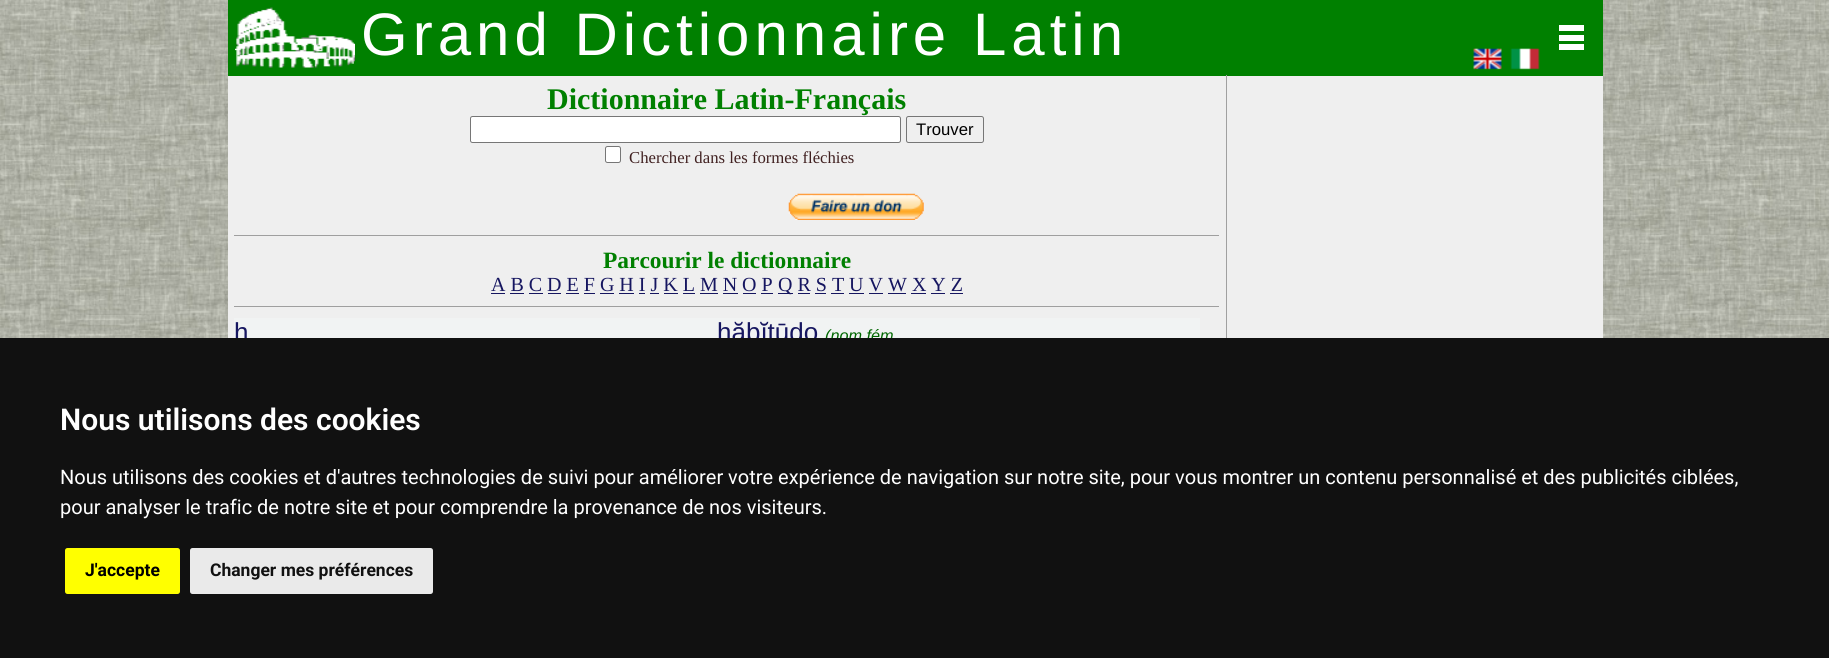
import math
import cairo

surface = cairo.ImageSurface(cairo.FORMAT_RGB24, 1829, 658)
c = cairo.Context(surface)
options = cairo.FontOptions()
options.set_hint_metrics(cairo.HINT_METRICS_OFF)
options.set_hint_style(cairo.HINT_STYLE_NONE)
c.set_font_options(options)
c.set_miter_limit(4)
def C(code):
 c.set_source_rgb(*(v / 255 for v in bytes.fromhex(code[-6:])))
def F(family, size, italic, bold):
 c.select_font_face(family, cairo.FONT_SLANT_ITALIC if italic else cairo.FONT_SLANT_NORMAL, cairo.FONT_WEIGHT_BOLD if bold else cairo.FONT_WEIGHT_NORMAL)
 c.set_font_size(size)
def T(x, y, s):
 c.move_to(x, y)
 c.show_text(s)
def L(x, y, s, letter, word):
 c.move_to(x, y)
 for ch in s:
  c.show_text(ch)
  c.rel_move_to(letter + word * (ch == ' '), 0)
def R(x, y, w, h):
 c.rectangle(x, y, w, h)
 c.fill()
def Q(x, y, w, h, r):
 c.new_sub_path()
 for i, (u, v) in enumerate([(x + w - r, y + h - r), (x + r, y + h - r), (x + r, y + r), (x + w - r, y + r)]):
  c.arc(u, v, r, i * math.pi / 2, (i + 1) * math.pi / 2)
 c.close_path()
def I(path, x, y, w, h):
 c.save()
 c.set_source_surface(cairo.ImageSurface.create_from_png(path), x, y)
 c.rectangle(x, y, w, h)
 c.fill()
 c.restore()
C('ffffff')
c.paint()
I('1.png',0,0,1829,338)
C('008000')
R(228,0,1375,76)
I('2.png',235,7,120,61)
F('Liberation Sans',60,0,0)
C('ffffff')
L(361,55,'Grand Dictionnaire Latin',5,0)
R(1559,44,25,6)
R(1559,35,25,6)
R(1559,25,25,6)
I('3.png',1473,48,29,22)
I('4.png',1510,48,30,22)
C('efefef')
R(228,76,1375,262)
F('Liberation Serif',30,0,1)
C('008000')
T(547,109,'Dictionnaire Latin-Français')
C('ffffff')
Q(470.5,116.5,430,26,2)
c.fill_preserve()
C('767676')
c.set_line_width(1)
c.stroke()
Q(906.5,116.5,77,26,2)
c.stroke()
F('Liberation Sans',16.7,0,0)
C('000000')
T(916,135,'Trouver')
C('ffffff')
Q(605.5,146.5,15,16,2)
c.fill_preserve()
C('767676')
c.stroke()
F('Liberation Serif',16.7,0,0)
C('402020')
T(629,163,'Chercher dans les formes fléchies')
I('5.png',788,193,136,27)
C('9f9f9f')
R(234,235,986,1)
C('eeeeee')
R(1219,235,1,1)
F('Liberation Serif',23.4,0,1)
C('008000')
T(603,268,'Parcourir le dictionnaire')
F('Liberation Serif',20,0,0)
C('161660')
T(491,291,'A B C D E F G H I J K L M N O P')
R(491,293,14,1)
R(778,293,15,1)
T(778,291,'Q R S T U V W X Y Z')
R(510,293,14,1)
R(529,293,14,1)
R(548,293,13,1)
R(566,293,13,1)
R(584,293,11,1)
R(600,293,14,1)
R(619,293,15,1)
R(639,293,6,1)
R(650,293,9,1)
R(664,293,14,1)
R(683,293,12,1)
R(700,293,18,1)
R(723,293,15,1)
R(743,293,13,1)
R(761,293,12,1)
R(798,293,12,1)
R(815,293,11,1)
R(831,293,13,1)
R(849,293,15,1)
R(869,293,14,1)
R(888,293,18,1)
R(911,293,15,1)
R(931,293,14,1)
R(950,293,13,1)
C('9f9f9f')
R(234,306,986,1)
C('eeeeee')
R(1219,306,1,1)
C('f1f3f3')
R(234,318,966,20)
F('Liberation Sans',26,0,0)
C('161660')
T(234,341,'h')
T(717,341,'hăbĭtūdo')
F('Liberation Sans',16.25,1,0)
C('006600')
T(825,341,'(nom fém')
C('a0a0a0')
R(1226,75,1,263)
C('111111')
R(0,338,1829,320)
F('Roboto SemiBold',30,0,0)
C('ffffff')
T(60,430,'Nous utilisons des cookies')
F('Roboto',20,0,0)
T(60,484,'Nous utilisons des cookies et d\'autres technologies de suivi pour améliorer votre expérience de navigation sur notre site, pour vous montrer un contenu personnalisé et des publicités ciblées,')
T(60,514,'pour analyser le trafic de notre site et pour comprendre la provenance de nos visiteurs.')
C('ffff00')
Q(65,548,115,46,2.5)
c.fill()
F('Roboto',17.5,0,1)
C('000000')
T(85,576,'J\'accepte')
C('eaeaea')
Q(190,548,243,46,2.5)
c.fill()
C('111111')
T(210,576,'Changer mes préférences')
surface.write_to_png('o.png')
